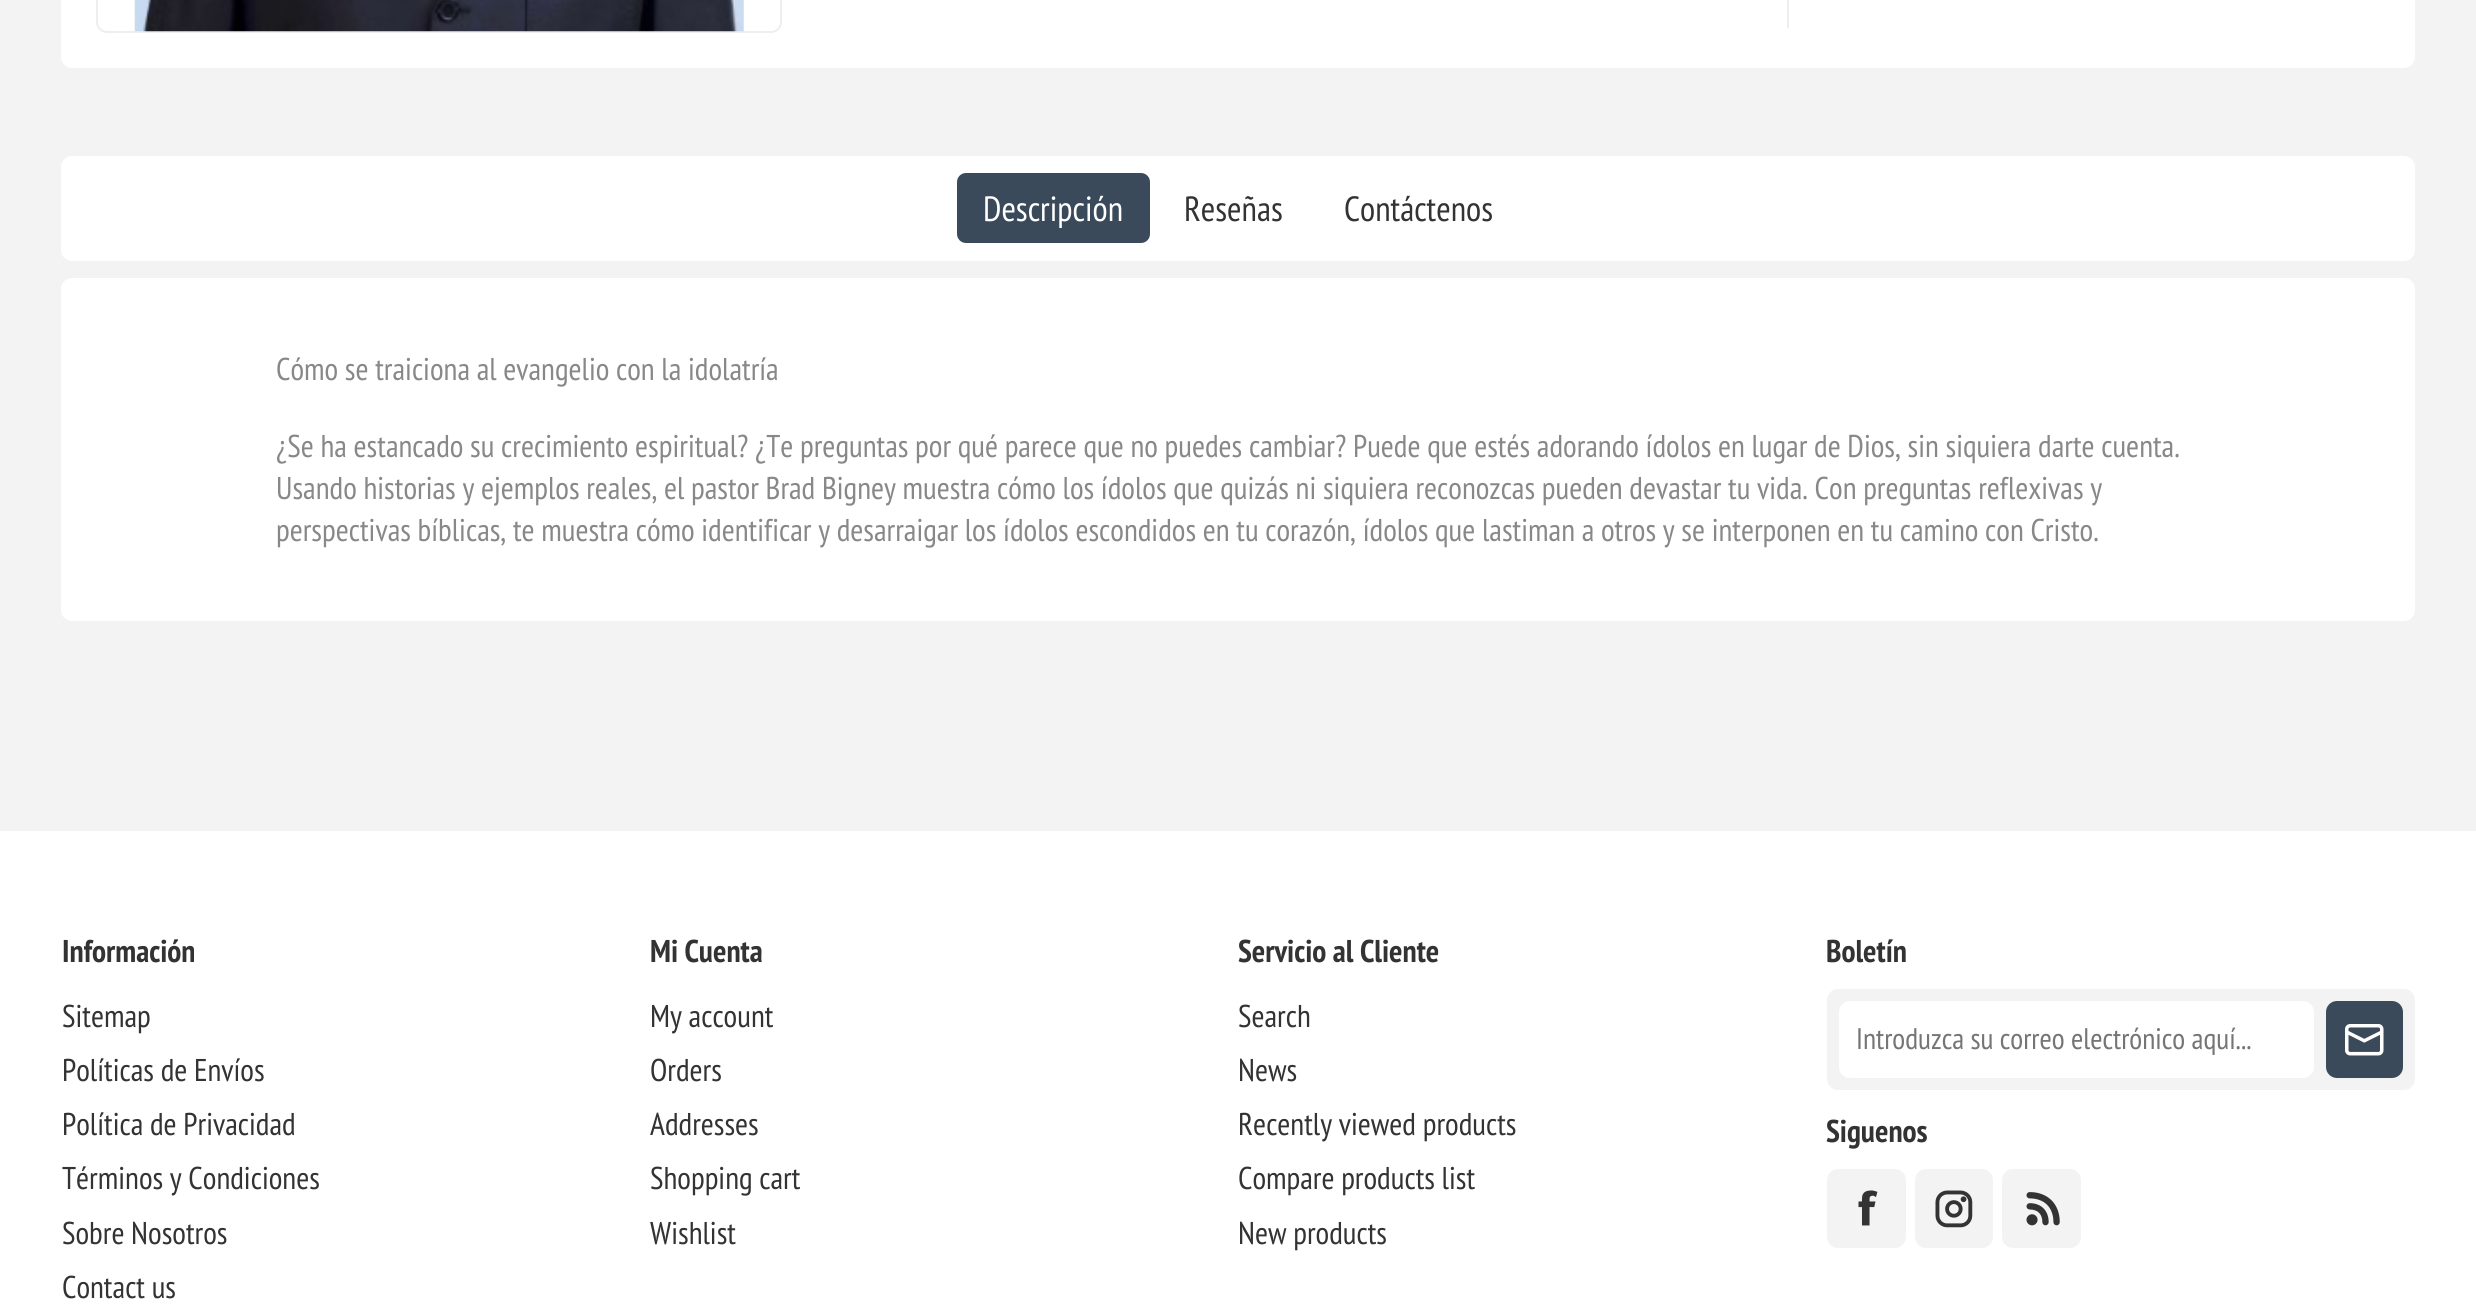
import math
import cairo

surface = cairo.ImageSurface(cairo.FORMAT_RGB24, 2476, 1307)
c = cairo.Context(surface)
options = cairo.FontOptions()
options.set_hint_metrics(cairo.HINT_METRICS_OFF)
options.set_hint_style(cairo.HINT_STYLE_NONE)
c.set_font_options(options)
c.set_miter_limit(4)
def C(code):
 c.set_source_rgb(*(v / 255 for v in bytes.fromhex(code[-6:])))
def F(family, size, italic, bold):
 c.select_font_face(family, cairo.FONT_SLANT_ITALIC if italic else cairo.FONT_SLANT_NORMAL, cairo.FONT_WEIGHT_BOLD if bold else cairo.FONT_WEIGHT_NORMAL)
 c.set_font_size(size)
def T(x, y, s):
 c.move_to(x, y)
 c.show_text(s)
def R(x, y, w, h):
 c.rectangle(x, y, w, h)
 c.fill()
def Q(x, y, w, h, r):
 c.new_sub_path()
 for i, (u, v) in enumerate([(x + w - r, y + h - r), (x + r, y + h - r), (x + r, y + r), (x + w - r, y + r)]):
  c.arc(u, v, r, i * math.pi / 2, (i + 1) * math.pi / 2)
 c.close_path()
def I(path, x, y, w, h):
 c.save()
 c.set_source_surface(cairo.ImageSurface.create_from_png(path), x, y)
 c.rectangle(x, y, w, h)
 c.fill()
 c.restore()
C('f3f3f3')
c.paint()
C('ffffff')
Q(61,-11,2354,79,11)
c.fill()
Q(97,-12,684,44,10)
C('eeeeee')
c.stroke()
I('1.png',134,0,610,32)
R(1787,0,2,28)
C('ffffff')
Q(61,156,2354,105,11)
c.fill()
C('3b4a5a')
Q(957,173,193,70,9)
c.fill()
F('PT Sans Narrow',35,0,0)
C('ffffff')
T(983,221,'Descripción')
C('333333')
T(1184,221,'Reseñas')
T(1344,221,'Contáctenos')
C('ffffff')
Q(61,278,2354,343,11)
c.fill()
F('PT Sans Narrow',31.5,0,0)
C('888888')
T(276,380,'Cómo se traiciona al evangelio con la idolatría')
T(276,457,'¿Se ha estancado su crecimiento espiritual? ¿Te preguntas por qué parece que no puedes cambiar? Puede que estés adorando ídolos en lugar de Dios, sin siquiera darte cuenta.')
T(276,499,'Usando historias y ejemplos reales, el pastor Brad Bigney muestra cómo los ídolos que quizás ni siquiera reconozcas pueden devastar tu vida. Con preguntas reflexivas y')
T(276,541,'perspectivas bíblicas, te muestra cómo identificar y desarraigar los ídolos escondidos en tu corazón, ídolos que lastiman a otros y se interponen en tu camino con Cristo.')
C('ffffff')
R(0,831,2476,476)
F('PT Sans Narrow',31.5,0,1)
C('333333')
T(62,962,'Información')
F('PT Sans Narrow',31.5,0,0)
T(62,1027,'Sitemap')
T(62,1081,'Políticas de Envíos')
T(62,1135,'Política de Privacidad')
T(62,1189,'Términos y Condiciones')
T(62,1244,'Sobre Nosotros')
T(62,1298,'Contact us')
F('PT Sans Narrow',31.5,0,1)
T(650,962,'Mi Cuenta')
F('PT Sans Narrow',31.5,0,0)
T(650,1027,'My account')
T(650,1081,'Orders')
T(650,1135,'Addresses')
T(650,1189,'Shopping cart')
T(650,1244,'Wishlist')
F('PT Sans Narrow',31.5,0,1)
T(1238,962,'Servicio al Cliente')
F('PT Sans Narrow',31.5,0,0)
T(1238,1027,'Search')
T(1238,1081,'News')
T(1238,1135,'Recently viewed products')
T(1238,1189,'Compare products list')
T(1238,1244,'New products')
F('PT Sans Narrow',31.5,0,1)
T(1826,962,'Boletín')
C('f3f3f3')
Q(1827,989,588,101,11)
c.fill()
C('ffffff')
Q(1839,1001,475,77,11)
c.fill()
F('PT Sans Narrow',29.75,0,0)
C('757575')
T(1856,1049,'Introduzca su correo electrónico aquí...')
C('3b4a5a')
Q(2326,1001,77,77,11)
c.fill()
I('2.png',2345,1024,39,32)
F('PT Sans Narrow',31.5,0,1)
C('333333')
T(1826,1142,'Siguenos')
C('f3f3f3')
Q(1827,1169,79,79,11)
c.fill()
I('3.png',1858,1190,20,36)
Q(1915,1169,78,79,11)
c.fill()
I('4.png',1935,1190,38,38)
Q(2002,1169,79,79,11)
c.fill()
I('5.png',2026,1192,34,34)
surface.write_to_png('o.png')
